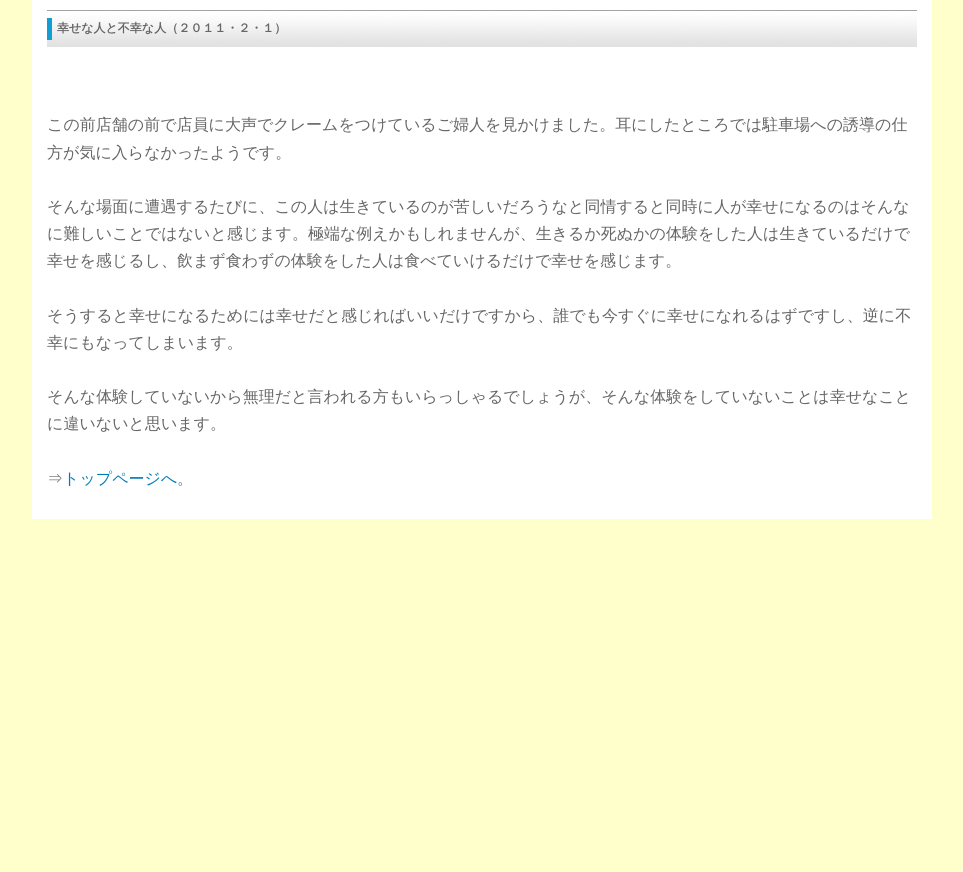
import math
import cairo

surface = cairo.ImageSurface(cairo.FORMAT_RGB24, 963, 872)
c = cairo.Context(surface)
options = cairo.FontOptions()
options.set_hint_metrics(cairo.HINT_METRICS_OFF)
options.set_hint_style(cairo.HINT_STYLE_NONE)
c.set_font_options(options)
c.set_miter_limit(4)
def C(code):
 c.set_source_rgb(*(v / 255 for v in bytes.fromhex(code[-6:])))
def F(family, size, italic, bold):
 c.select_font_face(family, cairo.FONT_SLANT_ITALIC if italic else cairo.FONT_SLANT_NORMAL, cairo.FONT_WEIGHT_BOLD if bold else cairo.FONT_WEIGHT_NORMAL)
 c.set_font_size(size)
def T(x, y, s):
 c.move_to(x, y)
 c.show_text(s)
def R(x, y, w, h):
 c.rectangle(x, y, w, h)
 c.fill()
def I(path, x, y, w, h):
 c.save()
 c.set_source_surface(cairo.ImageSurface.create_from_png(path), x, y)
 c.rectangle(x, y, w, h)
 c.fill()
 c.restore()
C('ffffcc')
c.paint()
C('ffffff')
R(32,0,900,519)
I('1.png',47,10,870,37)
F('WenQuanYi Zen Hei',12,0,1)
C('666666')
T(57,32,'幸せな人と不幸な人（２０１１・２・１）')
F('WenQuanYi Zen Hei Medium',16,0,0)
T(47,130,'この前店舗の前で店員に大声でクレームをつけているご婦人を見かけました。耳にしたところでは駐車場への誘導の仕')
T(47,158,'方が気に入らなかったようです。')
T(47,212,'そんな場面に遭遇するたびに、この人は生きているのが苦しいだろうなと同情すると同時に人が幸せになるのはそんな')
T(47,239,'に難しいことではないと感じます。極端な例えかもしれませんが、生きるか死ぬかの体験をした人は生きているだけで')
T(47,266,'幸せを感じるし、飲まず食わずの体験をした人は食べていけるだけで幸せを感じます。')
T(47,321,'そうすると幸せになるためには幸せだと感じればいいだけですから、誰でも今すぐに幸せになれるはずですし、逆に不')
T(47,348,'幸にもなってしまいます。')
T(47,402,'そんな体験していないから無理だと言われる方もいらっしゃるでしょうが、そんな体験をしていないことは幸せなこと')
T(47,429,'に違いないと思います。')
T(47,484,'⇒')
C('007bbb')
T(63,484,'トップページへ')
C('666666')
T(177,484,'。')
surface.write_to_png('o.png')
